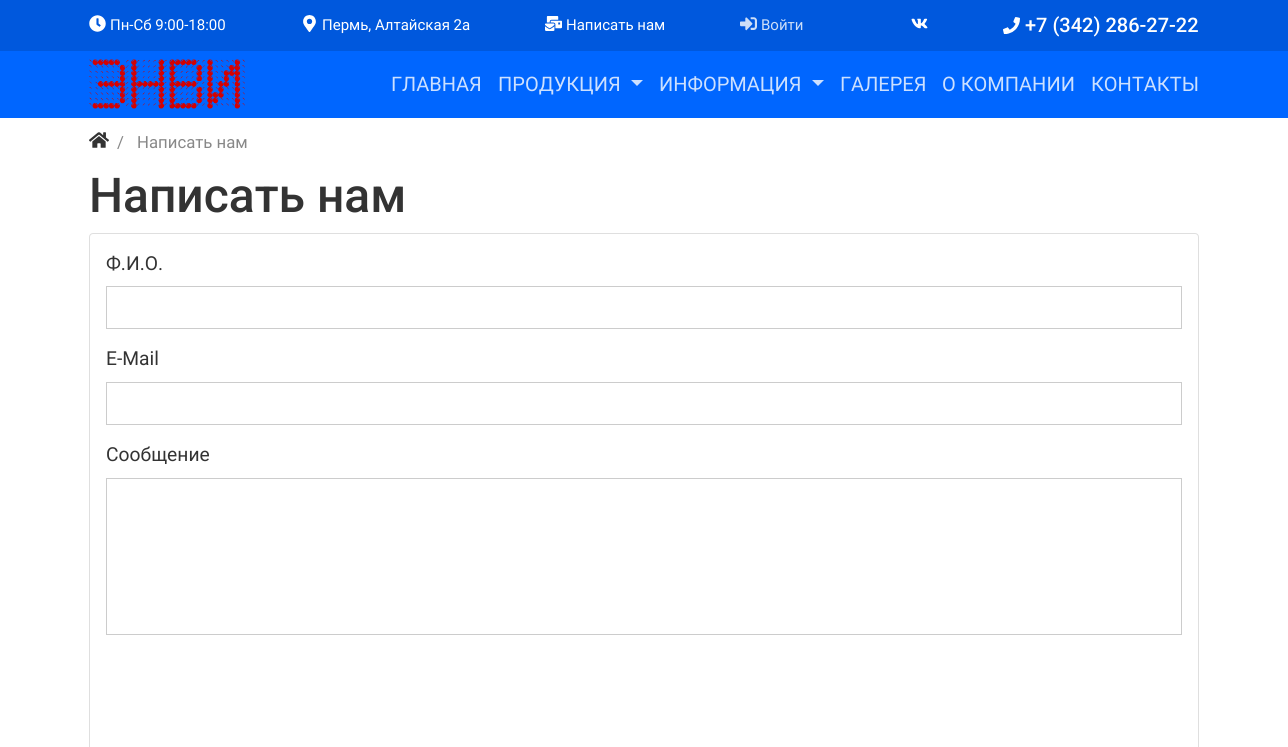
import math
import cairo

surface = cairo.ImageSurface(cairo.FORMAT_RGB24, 1288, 747)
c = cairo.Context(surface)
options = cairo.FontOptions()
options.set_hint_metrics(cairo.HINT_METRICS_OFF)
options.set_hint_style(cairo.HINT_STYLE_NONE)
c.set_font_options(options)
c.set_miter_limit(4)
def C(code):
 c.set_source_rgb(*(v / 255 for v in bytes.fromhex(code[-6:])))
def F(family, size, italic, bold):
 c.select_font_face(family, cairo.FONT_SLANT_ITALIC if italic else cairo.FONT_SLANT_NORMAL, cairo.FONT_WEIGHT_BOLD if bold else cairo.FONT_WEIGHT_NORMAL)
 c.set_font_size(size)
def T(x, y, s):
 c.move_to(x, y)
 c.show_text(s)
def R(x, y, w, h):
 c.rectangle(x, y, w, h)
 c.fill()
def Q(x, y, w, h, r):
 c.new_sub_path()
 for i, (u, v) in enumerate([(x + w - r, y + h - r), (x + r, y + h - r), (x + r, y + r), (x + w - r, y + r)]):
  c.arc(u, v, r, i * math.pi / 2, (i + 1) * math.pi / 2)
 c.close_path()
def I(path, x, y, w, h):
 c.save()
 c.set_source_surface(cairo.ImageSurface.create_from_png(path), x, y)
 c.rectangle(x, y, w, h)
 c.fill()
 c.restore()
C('ffffff')
c.paint()
C('0066ff')
R(0,51,1288,67)
C('0058dd')
R(0,0,1288,51)
I('1.png',89,15,17,17)
F('Roboto',15,0,0)
C('ffffff')
T(110,30,'Пн-Сб 9:00-18:00')
I('2.png',303,15,13,17)
T(322,30,'Пермь, Алтайская 2а')
I('3.png',545,16,17,15)
T(566,30,'Написать нам')
I('4.png',740,17,17,14)
C('ccdef8')
T(761,30,'Войти')
I('5.png',911,18,17,11)
I('6.png',1003,17,17,17)
F('Roboto Medium',20,0,0)
C('ffffff')
T(1025,32,'+7 (342) 286-27-22')
I('7.png',89,59,156,50)
F('Roboto',20,0,0)
C('cce0ff')
T(391,91,'ГЛАВНАЯ')
T(498,91,'ПРОДУКЦИЯ')
c.new_path()
c.move_to(631,80)
c.line_to(643,80)
c.line_to(637,86)
c.close_path()
c.fill()
T(659,91,'ИНФОРМАЦИЯ')
c.new_path()
c.move_to(812,80)
c.line_to(824,80)
c.line_to(818,86)
c.close_path()
c.fill()
T(840,91,'ГАЛЕРЕЯ')
T(942,91,'О КОМПАНИИ')
T(1091,91,'КОНТАКТЫ')
I('8.png',89,132,20,16)
F('Roboto',16.75,0,0)
C('888888')
T(117,148,'/')
T(137,148,'Написать нам')
F('Roboto Medium',48,0,0)
C('333333')
T(89,212,'Написать нам')
Q(89.5,233.5,1109,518,3.5)
C('dfdfdf')
c.set_line_width(1)
c.stroke()
F('Roboto',19.25,0,0)
C('333333')
T(106,270,'Ф.И.O.')
c.rectangle(106.5,286.5,1075,42)
C('cccccc')
c.stroke()
C('333333')
T(106,365,'Е-Маil')
c.rectangle(106.5,382.5,1075,42)
C('cccccc')
c.stroke()
C('333333')
T(106,461,'Сooбщениe')
c.rectangle(106.5,478.5,1075,156)
C('cccccc')
c.stroke()
surface.write_to_png('o.png')
